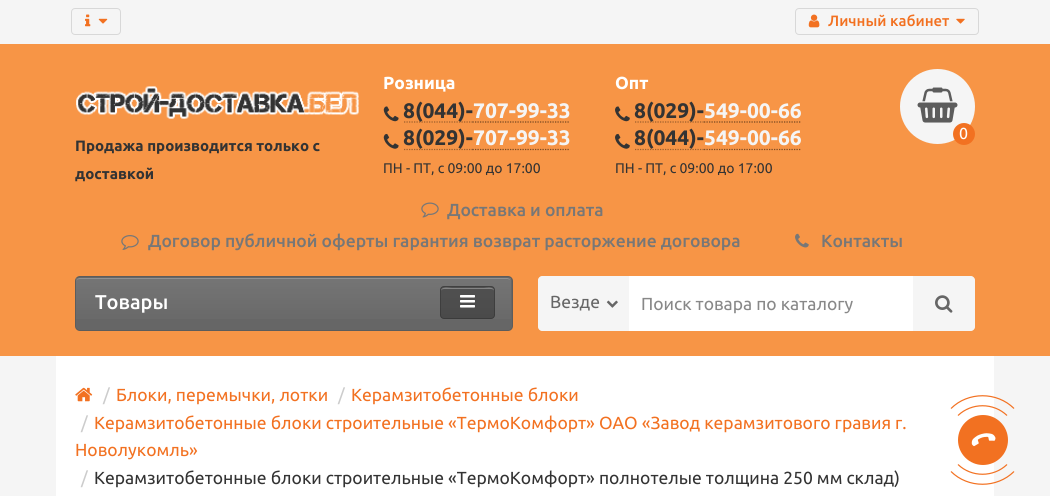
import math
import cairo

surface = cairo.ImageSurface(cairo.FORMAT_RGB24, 1050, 496)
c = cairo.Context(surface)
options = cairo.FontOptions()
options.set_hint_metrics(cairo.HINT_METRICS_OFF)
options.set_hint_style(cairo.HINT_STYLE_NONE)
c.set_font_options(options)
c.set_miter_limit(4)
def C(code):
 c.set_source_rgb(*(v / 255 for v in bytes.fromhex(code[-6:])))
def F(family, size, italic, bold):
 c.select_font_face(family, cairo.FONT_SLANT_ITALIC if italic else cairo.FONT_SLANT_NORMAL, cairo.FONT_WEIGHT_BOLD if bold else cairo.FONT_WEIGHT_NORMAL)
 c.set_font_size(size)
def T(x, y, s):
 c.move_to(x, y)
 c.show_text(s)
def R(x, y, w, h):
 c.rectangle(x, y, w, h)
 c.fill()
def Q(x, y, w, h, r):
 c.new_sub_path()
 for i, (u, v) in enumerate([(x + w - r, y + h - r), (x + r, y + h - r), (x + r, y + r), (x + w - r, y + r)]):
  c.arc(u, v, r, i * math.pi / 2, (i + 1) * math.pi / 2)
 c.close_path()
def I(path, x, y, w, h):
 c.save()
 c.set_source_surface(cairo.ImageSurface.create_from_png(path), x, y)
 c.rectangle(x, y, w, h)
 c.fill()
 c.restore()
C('f5f5f5')
c.paint()
Q(71.5,8.5,49,26,3.5)
C('d8d8d8')
c.set_line_width(1)
c.stroke()
I('1.png',85,14,6,13)
I('2.png',98,18,10,6)
Q(795.5,8.5,183,26,3.5)
c.stroke()
I('3.png',808,14,12,14)
F('Ubuntu Medium',15,0,0)
C('f27121')
T(828,26,'Личный кабинет')
I('4.png',956,18,9,6)
C('f79546')
R(0,44,1050,312)
F('Ubuntu',17.5,0,1)
C('ffffff')
T(383,89,'Розница')
I('5.png',383,106,16,16)
c.new_path()
c.move_to(404,122)
c.line_to(472.5,122)
C('c67738')
c.set_line_width(1.2)
c.set_dash([1.25,1.25])
c.stroke()
c.new_path()
c.move_to(472.5,122)
c.line_to(570,122)
c.stroke()
c.new_path()
c.move_to(404,122)
c.line_to(472.5,122)
c.set_source_rgba(0,0,0,0.2)
c.stroke()
c.new_path()
c.move_to(472.5,122)
c.line_to(570,122)
c.stroke()
F('Ubuntu',21,0,1)
C('333333')
T(403,118,'8(044)-')
c.new_path()
c.move_to(472.5,122)
c.line_to(570,122)
c.set_source_rgba(0,0,0,0.2)
c.stroke()
C('f5f5f5')
T(473,118,'707-99-33')
I('6.png',383,133,16,16)
c.new_path()
c.move_to(404,149.5)
c.line_to(472.5,149.5)
C('c67738')
c.stroke()
c.new_path()
c.move_to(472.5,149.5)
c.line_to(570,149.5)
c.set_source_rgba(0,0,0,0.2)
c.stroke()
c.new_path()
c.move_to(404,149.5)
c.line_to(472.5,149.5)
c.stroke()
c.new_path()
c.move_to(472.5,149.5)
c.line_to(570,149.5)
c.stroke()
C('333333')
T(403,145,'8(029)-')
c.new_path()
c.move_to(472.5,149.5)
c.line_to(570,149.5)
c.set_source_rgba(0,0,0,0.2)
c.stroke()
C('f5f5f5')
T(473,145,'707-99-33')
F('Ubuntu',14,0,0)
C('333333')
T(383,173,'ПН - ПТ, с 09:00 до 17:00')
F('Ubuntu',17.5,0,1)
C('ffffff')
T(615,89,'Опт')
I('7.png',615,106,15,16)
c.new_path()
c.move_to(635,122)
c.line_to(704,122)
C('c67738')
c.stroke()
c.new_path()
c.move_to(635,122)
c.line_to(704,122)
c.set_source_rgba(0,0,0,0.2)
c.stroke()
F('Ubuntu',21,0,1)
C('333333')
T(634,118,'8(029)-')
c.new_path()
c.move_to(704,122)
c.line_to(801,122)
C('c67738')
c.stroke()
c.new_path()
c.move_to(704,122)
c.line_to(801,122)
c.set_source_rgba(0,0,0,0.2)
c.stroke()
c.new_path()
c.move_to(704,122)
c.line_to(801,122)
c.stroke()
C('f5f5f5')
T(704,118,'549-00-66')
I('8.png',615,133,15,16)
c.new_path()
c.move_to(635,149.5)
c.line_to(704,149.5)
C('c67738')
c.stroke()
c.new_path()
c.move_to(635,149.5)
c.line_to(704,149.5)
c.set_source_rgba(0,0,0,0.2)
c.stroke()
C('333333')
T(634,145,'8(044)-')
c.new_path()
c.move_to(704,149.5)
c.line_to(801,149.5)
C('c67738')
c.stroke()
c.new_path()
c.move_to(704,149.5)
c.line_to(801,149.5)
c.set_source_rgba(0,0,0,0.2)
c.stroke()
c.new_path()
c.move_to(704,149.5)
c.line_to(801,149.5)
c.stroke()
C('f5f5f5')
T(704,145,'549-00-66')
F('Ubuntu',14,0,0)
C('333333')
T(615,173,'ПН - ПТ, с 09:00 до 17:00')
C('f5f5f5')
c.new_path()
c.arc(937.5,106.5,37.5,0,2 * math.pi)
c.fill()
I('9.png',917,87,41,36)
C('f27121')
c.arc(964,134,11,0,2 * math.pi)
c.fill()
F('Ubuntu',16,0,0)
C('ffffff')
T(959,139,'0')
I('10.png',76,86,283,33)
F('Ubuntu',15,0,1)
C('333333')
T(75,151,'Продажа производится только с')
T(75,179,'доставкой')
I('11.png',421,202,18,16)
F('Ubuntu Medium',17.5,0,0)
C('777777')
T(447,216,'Доставка и оплата')
I('12.png',121,235,18,15)
T(148,247,'Договор публичной оферты гарантия возврат расторжение договора')
I('13.png',795,233,14,15)
T(821,247,'Контакты')
C('666666')
Q(75,276,438,55,5)
c.fill()
C('858585')
c.new_path()
c.move_to(80,279)
c.line_to(508,279)
c.line_to(510,280)
c.curve_to(510,279,508,278,507,278)
c.line_to(80,278)
c.curve_to(78,278,76,280,76,282)
c.curve_to(76,280,78,279,80,279)
c.close_path()
c.fill()
Q(75.5,276.5,437,54,4.5)
c.set_source_rgba(0,0,0,0.1)
c.set_line_width(1)
c.set_dash([])
c.stroke()
gradient = cairo.LinearGradient(294,277,294,330)
gradient.add_color_stop_rgba(0,1,1,1,.1)
gradient.add_color_stop_rgba(1,1,1,1,0)
c.set_source(gradient)
R(76,278,435,41)
F('Ubuntu Medium',20,0,0)
C('ffffff')
T(95,309,'Товары')
c.set_source_rgba(0,0,0,0.3)
Q(440,286,55,33,4)
c.fill()
C('848484')
c.new_path()
c.move_to(444,289)
c.line_to(491,289)
c.curve_to(493,289,494,290,494,291)
c.curve_to(494,286,486,288,484,288)
c.line_to(452,288)
c.curve_to(449,288,441,286,441,291)
c.curve_to(441,290,442,289,444,289)
c.close_path()
c.fill()
Q(440.5,286.5,54,32,3.5)
c.set_source_rgba(0,0,0,0.2)
c.stroke()
I('14.png',460,295,15,13)
C('f5f5f5')
c.new_path()
c.move_to(542,276)
c.line_to(631,276)
c.line_to(631,331)
c.line_to(542,331)
c.curve_to(540,331,538,329,538,327)
c.line_to(538,280)
c.curve_to(538,278,540,276,542,276)
c.close_path()
c.fill()
F('Ubuntu',17.5,0,0)
C('666666')
T(550,308,'Везде')
I('15.png',606,300,12,8)
C('ffffff')
R(629,276,284,55)
C('888888')
T(641,310,'Поиск товара по каталогу')
C('f5f5f5')
c.new_path()
c.move_to(913,276)
c.line_to(971,276)
c.curve_to(973,276,975,278,975,280)
c.line_to(975,327)
c.curve_to(975,329,973,331,971,331)
c.line_to(913,331)
c.close_path()
c.fill()
I('16.png',935,295,18,18)
C('ffffff')
R(56,356,938,140)
I('17.png',75,387,18,15)
C('cccccc')
T(103,401,'/')
C('f27121')
T(116,401,'Блоки, перемычки, лотки')
C('cccccc')
T(338,401,'/')
C('f27121')
T(351,401,'Керамзитобетонные блоки')
C('cccccc')
T(81,429,'/')
C('f27121')
T(94,429,'Керамзитобетонные блоки строительные «ТермоКомфорт» ОАО «Завод керамзитового гравия г.')
T(75,456,'Новолукомль»')
C('cccccc')
T(81,484,'/')
C('333333')
T(94,484,'Керамзитобетонные блоки строительные «ТермоКомфорт» полнотелые толщина 250 мм склад)')
C('f27121')
c.new_path()
c.arc(983,440,25,0,2 * math.pi)
c.fill()
c.new_path()
c.move_to(958,415.5)
c.curve_to(971.5,402.5,993.5,402.5,1007,415.5)
c.set_line_width(1.2)
c.stroke()
c.new_path()
c.move_to(951,408.5)
c.curve_to(968,391.5,997,391.5,1014,408.5)
c.stroke()
c.new_path()
c.move_to(1007,464.5)
c.curve_to(993.5,477.5,971.5,477.5,958,464.5)
c.stroke()
c.new_path()
c.move_to(1014,471.5)
c.curve_to(997,488.5,968,488.5,951,471.5)
c.stroke()
I('18.png',971,433,25,14)
surface.write_to_png('o.png')
